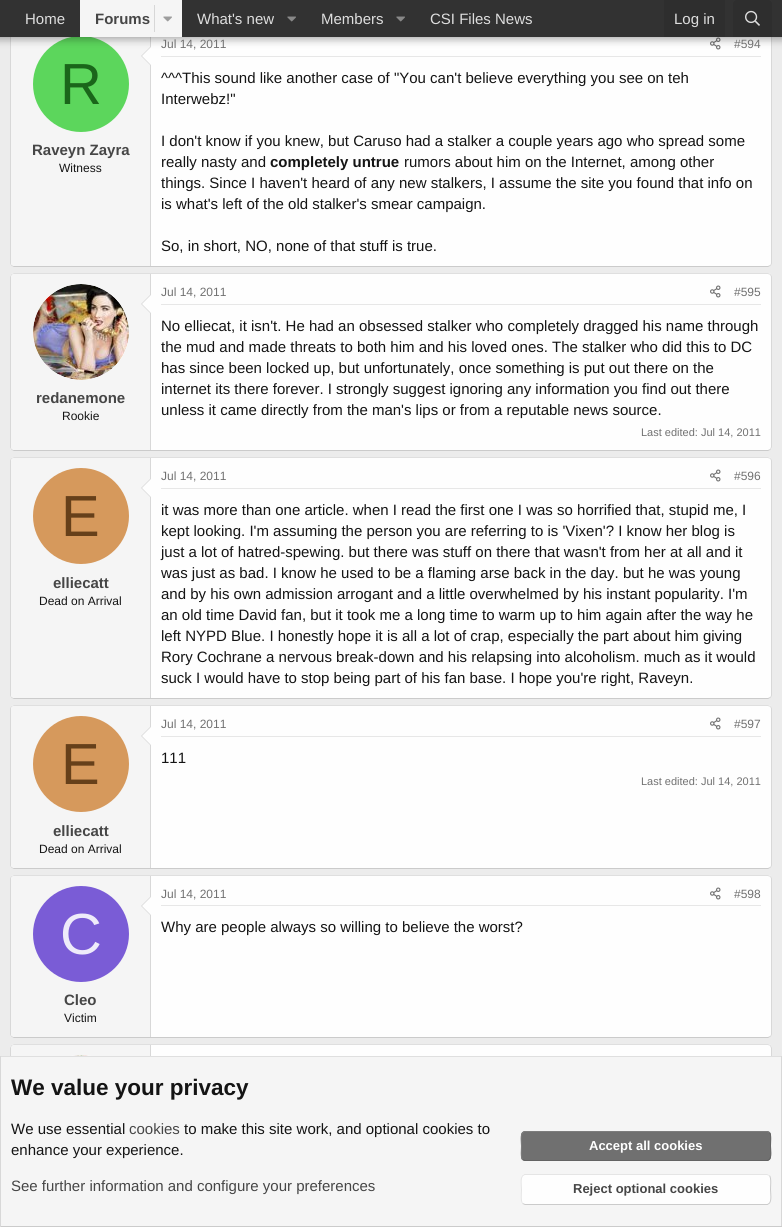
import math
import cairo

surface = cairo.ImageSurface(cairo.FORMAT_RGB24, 782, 1227)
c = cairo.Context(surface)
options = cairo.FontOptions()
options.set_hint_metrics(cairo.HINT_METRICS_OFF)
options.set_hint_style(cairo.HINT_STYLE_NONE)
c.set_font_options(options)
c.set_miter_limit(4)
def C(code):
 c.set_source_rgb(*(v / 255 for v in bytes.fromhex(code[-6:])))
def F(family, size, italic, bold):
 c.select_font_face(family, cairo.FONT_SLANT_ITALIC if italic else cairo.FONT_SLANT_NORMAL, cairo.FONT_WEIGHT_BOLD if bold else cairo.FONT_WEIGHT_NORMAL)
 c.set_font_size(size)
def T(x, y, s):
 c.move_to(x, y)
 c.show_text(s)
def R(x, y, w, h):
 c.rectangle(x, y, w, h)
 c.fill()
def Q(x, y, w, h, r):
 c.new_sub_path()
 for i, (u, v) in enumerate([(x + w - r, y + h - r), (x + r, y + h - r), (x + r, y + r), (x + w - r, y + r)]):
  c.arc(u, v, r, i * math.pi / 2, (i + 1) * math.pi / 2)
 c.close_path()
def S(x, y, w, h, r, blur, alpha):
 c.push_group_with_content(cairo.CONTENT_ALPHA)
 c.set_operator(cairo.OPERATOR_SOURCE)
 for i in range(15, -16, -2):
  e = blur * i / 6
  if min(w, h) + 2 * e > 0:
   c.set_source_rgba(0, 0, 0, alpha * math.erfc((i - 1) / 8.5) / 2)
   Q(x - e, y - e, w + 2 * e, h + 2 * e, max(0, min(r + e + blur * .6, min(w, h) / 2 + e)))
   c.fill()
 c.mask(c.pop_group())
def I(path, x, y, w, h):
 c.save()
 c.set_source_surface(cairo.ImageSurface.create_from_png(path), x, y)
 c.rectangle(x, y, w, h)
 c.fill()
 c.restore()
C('ececec')
c.paint()
C('fefefe')
Q(10,25,762,242,4)
c.fill()
c.new_path()
c.move_to(770.5,26.5)
c.curve_to(771,27,771.5,28,771.5,29)
c.line_to(771.5,263)
c.curve_to(771.5,264,771,265,770.5,265.5)
C('d8d8d8')
c.set_line_width(1)
c.stroke()
c.new_path()
c.move_to(770.5,265.5)
c.line_to(768,266.5)
c.line_to(14,266.5)
c.line_to(11.5,265.5)
C('cbcbcb')
c.stroke()
c.new_path()
c.move_to(11.5,265.5)
c.curve_to(11,265,10.5,264,10.5,263)
c.line_to(10.5,29)
c.curve_to(10.5,28,11,27,11.5,26.5)
C('d8d8d8')
c.stroke()
C('f5f5f5')
c.new_path()
c.move_to(14,26)
c.line_to(151,26)
c.line_to(151,266)
c.line_to(14,266)
c.curve_to(12.5,266,11,264.5,11,263)
c.line_to(11,29)
c.curve_to(11,27.5,12.5,26,14,26)
c.close_path()
c.fill()
C('d8d8d8')
R(150,37,1,229)
c.new_path()
c.move_to(151,46)
c.line_to(151,66)
c.line_to(141,56)
c.close_path()
c.fill()
C('fefefe')
c.new_path()
c.move_to(151,47)
c.line_to(151,65)
c.line_to(142,56)
c.close_path()
c.fill()
C('5cd65c')
c.arc(81,84,48,0,2 * math.pi)
c.fill()
I('4.png',710,37,11,13)
C('000000')
S(-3,-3,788,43,0,4,.3)
C('323232')
R(0,0,782,37)
F('Liberation Sans',15,0,0)
C('dedede')
T(25,24,'Home')
C('f5f5f5')
R(80,0,102,37)
F('Liberation Sans',15,0,1)
C('464646')
T(95,24,'Forums')
C('d7d7d7')
R(154,5,1,27)
I('1.png',163,16,9,6)
F('Liberation Sans',15,0,0)
C('dedede')
T(197,24,'What\'s new')
I('2.png',287,16,9,6)
T(321,24,'Members')
I('2.png',396,16,9,6)
T(430,24,'CSI Files News')
C('2e2e2e')
R(664,0,61,37)
C('dedede')
T(674,24,'Log in')
C('2e2e2e')
c.new_path()
c.move_to(737,0)
c.line_to(768,0)
c.curve_to(770,0,772,2,772,4)
c.line_to(772,37)
c.line_to(733,37)
c.line_to(733,4)
c.curve_to(733,2,735,0,737,0)
c.close_path()
c.fill()
I('3.png',745,10,15,16)
F('Liberation Sans',58,0,0)
C('1a661a')
T(60,104,'R')
F('Liberation Sans',15,0,1)
C('464646')
T(32,155,'Raveyn Zayra')
F('Liberation Sans',12,0,0)
C('141414')
T(59,172,'Witness')
C('e7e7e7')
R(161,56,600,1)
C('717171')
T(161,48,'Jul 14, 2011')
T(734,48,'#594')
F('Liberation Sans',15,0,0)
C('141414')
T(161,83,'^^^This sound like another case of "You can\'t believe everything you see on teh')
T(161,104,'Interwebz!"')
T(161,146,'I don\'t know if you knew, but Caruso had a stalker a couple years ago who spread some')
T(161,167,'really nasty and')
F('Liberation Sans',15,0,1)
T(270,167,'completely untrue')
F('Liberation Sans',15,0,0)
T(404,167,'rumors about him on the Internet, among other')
T(161,188,'things. Since I haven\'t heard of any new stalkers, I assume the site you found that info on')
T(161,209,'is what\'s left of the old stalker\'s smear campaign.')
T(161,251,'So, in short, NO, none of that stuff is true.')
C('fefefe')
Q(10,273,762,178,4)
c.fill()
c.new_path()
c.move_to(11.5,274.5)
c.line_to(14,273.5)
c.line_to(768,273.5)
c.line_to(770.5,274.5)
C('dfdfdf')
c.stroke()
c.new_path()
c.move_to(770.5,274.5)
c.line_to(771.5,276.5)
c.line_to(771.5,418.5)
c.line_to(771.5,447)
c.line_to(770.5,449.5)
C('d8d8d8')
c.stroke()
c.new_path()
c.move_to(770.5,449.5)
c.line_to(768,450.5)
c.line_to(14,450.5)
c.line_to(11.5,449.5)
C('cbcbcb')
c.stroke()
c.new_path()
c.move_to(11.5,449.5)
c.line_to(10.5,447.5)
c.line_to(10.5,305.5)
c.line_to(10.5,277)
c.line_to(11.5,274.5)
C('d8d8d8')
c.stroke()
C('f5f5f5')
c.new_path()
c.move_to(14,274)
c.line_to(151,274)
c.line_to(151,450)
c.line_to(14,450)
c.curve_to(12.5,450,11,448.5,11,447)
c.line_to(11,277)
c.curve_to(11,275.5,12.5,274,14,274)
c.close_path()
c.fill()
C('d8d8d8')
R(150,274,1,176)
C('fefefe')
c.arc(81,332,48,0,2 * math.pi)
c.fill()
I('5.png',33,284,96,96)
C('d8d8d8')
c.new_path()
c.move_to(151,294)
c.line_to(151,314)
c.line_to(141,304)
c.close_path()
c.fill()
C('fefefe')
c.new_path()
c.move_to(151,295)
c.line_to(151,313)
c.line_to(142,304)
c.close_path()
c.fill()
F('Liberation Sans',15,0,1)
C('464646')
T(36,403,'redanemone')
F('Liberation Sans',12,0,0)
C('141414')
T(62,420,'Rookie')
C('e7e7e7')
R(161,304,600,1)
C('717171')
T(161,296,'Jul 14, 2011')
I('4.png',710,285,11,13)
T(734,296,'#595')
F('Liberation Sans',15,0,0)
C('141414')
T(161,331,'No elliecat, it isn\'t. He had an obsessed stalker who completely dragged his name through')
T(161,352,'the mud and made threats to both him and his loved ones. The stalker who did this to DC')
T(161,373,'has since been locked up, but unfortunately, once something is put out there on the')
T(161,394,'internet its there forever. I strongly suggest ignoring any information you find out there')
T(161,415,'unless it came directly from the man\'s lips or from a reputable news source.')
F('Liberation Sans',11,0,0)
C('717171')
T(641,436,'Last edited: Jul 14, 2011')
C('fefefe')
Q(10,457,762,242,4)
c.fill()
c.new_path()
c.move_to(11.5,458.5)
c.line_to(14,457.5)
c.line_to(768,457.5)
c.line_to(770.5,458.5)
C('dfdfdf')
c.stroke()
c.new_path()
c.move_to(770.5,458.5)
c.curve_to(771,459,771.5,460,771.5,461)
c.line_to(771.5,695)
c.curve_to(771.5,696,771,697,770.5,697.5)
C('d8d8d8')
c.stroke()
c.new_path()
c.move_to(770.5,697.5)
c.line_to(768,698.5)
c.line_to(14,698.5)
c.line_to(11.5,697.5)
C('cbcbcb')
c.stroke()
c.new_path()
c.move_to(11.5,697.5)
c.curve_to(11,697,10.5,696,10.5,695)
c.line_to(10.5,461)
c.curve_to(10.5,460,11,459,11.5,458.5)
C('d8d8d8')
c.stroke()
C('f5f5f5')
c.new_path()
c.move_to(14,458)
c.line_to(151,458)
c.line_to(151,698)
c.line_to(14,698)
c.curve_to(12.5,698,11,696.5,11,695)
c.line_to(11,461)
c.curve_to(11,459.5,12.5,458,14,458)
c.close_path()
c.fill()
C('d8d8d8')
R(150,458,1,240)
c.new_path()
c.move_to(151,478)
c.line_to(151,498)
c.line_to(141,488)
c.close_path()
c.fill()
C('fefefe')
c.new_path()
c.move_to(151,479)
c.line_to(151,497)
c.line_to(142,488)
c.close_path()
c.fill()
C('d6995c')
c.arc(81,516,48,0,2 * math.pi)
c.fill()
F('Liberation Sans',58,0,0)
C('66401a')
T(61,536,'E')
F('Liberation Sans',15,0,1)
C('464646')
T(53,588,'elliecatt')
F('Liberation Sans',12,0,0)
C('141414')
T(39,605,'Dead on Arrival')
C('e7e7e7')
R(161,488,600,1)
C('717171')
T(161,480,'Jul 14, 2011')
I('4.png',710,469,11,13)
T(734,480,'#596')
F('Liberation Sans',15,0,0)
C('141414')
T(161,515,'it was more than one article. when I read the first one I was so horrified that, stupid me, I')
T(161,536,'kept looking. I\'m assuming the person you are referring to is \'Vixen\'? I know her blog is')
T(161,557,'just a lot of hatred-spewing. but there was stuff on there that wasn\'t from her at all and it')
T(161,578,'was just as bad. I know he used to be a flaming arse back in the day. but he was young')
T(161,599,'and by his own admission arrogant and a little overwhelmed by his instant popularity. I\'m')
T(161,620,'an old time David fan, but it took me a long time to warm up to him again after the way he')
T(161,641,'left NYPD Blue. I honestly hope it is all a lot of crap, especially the part about him giving')
T(161,662,'Rory Cochrane a nervous break-down and his relapsing into alcoholism. much as it would')
T(161,683,'suck I would have to stop being part of his fan base. I hope you\'re right, Raveyn.')
C('fefefe')
Q(10,705,762,164,4)
c.fill()
c.new_path()
c.move_to(11.5,706.5)
c.line_to(14,705.5)
c.line_to(768,705.5)
c.line_to(770.5,706.5)
C('dfdfdf')
c.stroke()
c.new_path()
c.move_to(770.5,706.5)
c.curve_to(771,707,771.5,708,771.5,709)
c.line_to(771.5,865)
c.curve_to(771.5,866,771,867,770.5,867.5)
C('d8d8d8')
c.stroke()
c.new_path()
c.move_to(770.5,867.5)
c.line_to(768,868.5)
c.line_to(14,868.5)
c.line_to(11.5,867.5)
C('cbcbcb')
c.stroke()
c.new_path()
c.move_to(11.5,867.5)
c.curve_to(11,867,10.5,866,10.5,865)
c.line_to(10.5,709)
c.curve_to(10.5,708,11,707,11.5,706.5)
C('d8d8d8')
c.stroke()
C('f5f5f5')
c.new_path()
c.move_to(14,706)
c.line_to(151,706)
c.line_to(151,868)
c.line_to(14,868)
c.curve_to(12.5,868,11,866.5,11,865)
c.line_to(11,709)
c.curve_to(11,707.5,12.5,706,14,706)
c.close_path()
c.fill()
C('d8d8d8')
R(150,706,1,162)
c.new_path()
c.move_to(151,726)
c.line_to(151,746)
c.line_to(141,736)
c.close_path()
c.fill()
C('fefefe')
c.new_path()
c.move_to(151,727)
c.line_to(151,745)
c.line_to(142,736)
c.close_path()
c.fill()
C('d6995c')
c.arc(81,764,48,0,2 * math.pi)
c.fill()
F('Liberation Sans',58,0,0)
C('66401a')
T(61,784,'E')
F('Liberation Sans',15,0,1)
C('464646')
T(53,836,'elliecatt')
F('Liberation Sans',12,0,0)
C('141414')
T(39,853,'Dead on Arrival')
C('e7e7e7')
R(161,736,600,1)
C('717171')
T(161,728,'Jul 14, 2011')
I('4.png',710,717,11,13)
T(734,728,'#597')
F('Liberation Sans',15,0,0)
C('141414')
T(161,763,'111')
F('Liberation Sans',11,0,0)
C('717171')
T(641,785,'Last edited: Jul 14, 2011')
C('fefefe')
Q(10,875,762,163,4)
c.fill()
c.new_path()
c.move_to(11.5,876.5)
c.line_to(14,875.5)
c.line_to(768,875.5)
c.line_to(770.5,876.5)
C('dfdfdf')
c.stroke()
c.new_path()
c.move_to(770.5,876.5)
c.curve_to(771,877,771.5,878,771.5,879)
c.line_to(771.5,1034)
c.curve_to(771.5,1035,771,1036,770.5,1036.5)
C('d8d8d8')
c.stroke()
c.new_path()
c.move_to(770.5,1036.5)
c.line_to(768,1037.5)
c.line_to(14,1037.5)
c.line_to(11.5,1036.5)
C('cbcbcb')
c.stroke()
c.new_path()
c.move_to(11.5,1036.5)
c.curve_to(11,1036,10.5,1035,10.5,1034)
c.line_to(10.5,879)
c.curve_to(10.5,878,11,877,11.5,876.5)
C('d8d8d8')
c.stroke()
C('f5f5f5')
c.new_path()
c.move_to(14,876)
c.line_to(151,876)
c.line_to(151,1037)
c.line_to(14,1037)
c.curve_to(12.5,1037,11,1035.5,11,1034)
c.line_to(11,879)
c.curve_to(11,877.5,12.5,876,14,876)
c.close_path()
c.fill()
C('d8d8d8')
R(150,876,1,161)
c.new_path()
c.move_to(151,896)
c.line_to(151,916)
c.line_to(141,906)
c.close_path()
c.fill()
C('fefefe')
c.new_path()
c.move_to(151,897)
c.line_to(151,915)
c.line_to(142,906)
c.close_path()
c.fill()
C('7a5cd6')
c.arc(81,934,48,0,2 * math.pi)
c.fill()
F('Liberation Sans',58,0,0)
C('eeebfa')
T(60,954,'C')
F('Liberation Sans',15,0,1)
C('464646')
T(64,1005,'Cleo')
F('Liberation Sans',12,0,0)
C('141414')
T(64,1022,'Victim')
C('e7e7e7')
R(161,905,600,1)
C('717171')
T(161,898,'Jul 14, 2011')
I('4.png',710,887,11,13)
T(734,898,'#598')
F('Liberation Sans',15,0,0)
C('141414')
T(161,932,'Why are people always so willing to believe the worst?')
C('fefefe')
Q(10,1044,762,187,4)
c.fill()
c.new_path()
c.move_to(11.5,1045.5)
c.line_to(14,1044.5)
c.line_to(768,1044.5)
c.line_to(770.5,1045.5)
C('dfdfdf')
c.stroke()
c.new_path()
c.move_to(770.5,1045.5)
c.line_to(771.5,1048)
c.line_to(771.5,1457)
c.line_to(770.5,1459.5)
C('d8d8d8')
c.stroke()
c.new_path()
c.move_to(11.5,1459.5)
c.line_to(10.5,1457)
c.line_to(10.5,1048)
c.line_to(11.5,1045.5)
c.stroke()
C('f5f5f5')
c.new_path()
c.move_to(14,1045)
c.line_to(151,1045)
c.line_to(151,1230)
c.line_to(14,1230)
c.curve_to(12.5,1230,11,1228.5,11,1227)
c.line_to(11,1048)
c.curve_to(11,1046.5,12.5,1045,14,1045)
c.close_path()
c.fill()
C('d8d8d8')
R(150,1045,1,11)
C('fefefe')
c.arc(81,1103,48,0,2 * math.pi)
c.fill()
I('6.png',73,1055,16,1)
C('f5f5f5')
R(1,1057,780,169)
C('dfdfdf')
R(0,1056,782,1)
C('d8d8d8')
R(781,1056,1,171)
C('cbcbcb')
R(0,1226,782,1)
C('d8d8d8')
R(0,1056,1,171)
F('Liberation Sans',22.5,0,1)
C('141414')
T(11,1095,'We value your privacy')
F('Liberation Sans',15,0,0)
T(11,1134,'We use essential')
C('464646')
T(129,1134,'cookies')
C('141414')
T(184,1134,'to make this site work, and optional cookies to')
T(11,1155,'enhance your experience.')
C('464646')
T(11,1191,'See further information and configure your preferences')
C('707070')
Q(521,1131,250,30,4)
c.fill()
c.new_path()
c.move_to(769.5,1132.5)
c.curve_to(771.5,1134.5,770.5,1143,770.5,1146)
c.curve_to(770.5,1149,772,1157.5,769,1159.5)
c.line_to(767.5,1160.5)
c.line_to(525,1160.5)
c.line_to(522.5,1159.5)
C('636363')
c.stroke()
c.new_path()
c.move_to(522.5,1159.5)
c.curve_to(520.5,1157.5,521.5,1149,521.5,1146)
c.curve_to(521.5,1143,520,1134.5,523,1132.5)
c.line_to(524.5,1131.5)
c.line_to(767,1131.5)
c.line_to(769.5,1132.5)
C('7d7d7d')
c.stroke()
F('Liberation Sans',13,0,1)
C('ffffff')
T(589,1150,'Accept all cookies')
C('fefefe')
Q(521,1174,250,31,4)
c.fill()
c.new_path()
c.move_to(769.5,1175.5)
c.curve_to(771.5,1178,770.5,1186.5,770.5,1189.5)
c.curve_to(770.5,1192.5,772,1201.5,769,1203.5)
c.line_to(767.5,1204.5)
c.line_to(525,1204.5)
c.line_to(522.5,1203.5)
C('cbcbcb')
c.stroke()
c.new_path()
c.move_to(522.5,1203.5)
c.curve_to(520.5,1201,521.5,1192.5,521.5,1189.5)
c.curve_to(521.5,1186.5,520,1177.5,523,1175.5)
c.line_to(524.5,1174.5)
c.line_to(767,1174.5)
c.line_to(769.5,1175.5)
C('e5e5e5')
c.stroke()
C('464646')
T(573,1193,'Reject optional cookies')
surface.write_to_png('o.png')
